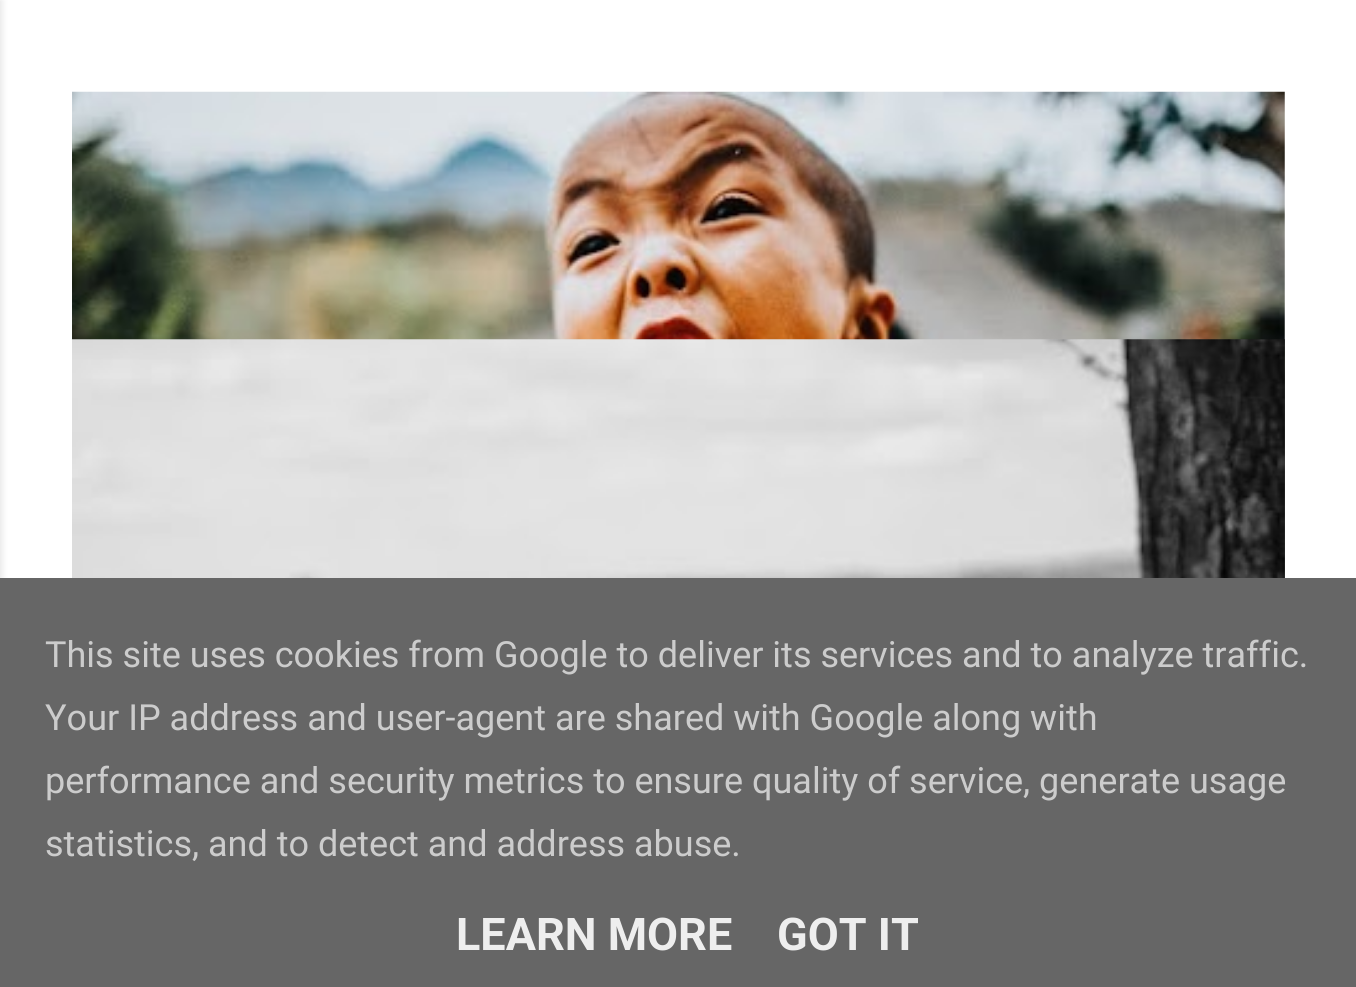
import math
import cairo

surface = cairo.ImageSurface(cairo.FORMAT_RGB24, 1356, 987)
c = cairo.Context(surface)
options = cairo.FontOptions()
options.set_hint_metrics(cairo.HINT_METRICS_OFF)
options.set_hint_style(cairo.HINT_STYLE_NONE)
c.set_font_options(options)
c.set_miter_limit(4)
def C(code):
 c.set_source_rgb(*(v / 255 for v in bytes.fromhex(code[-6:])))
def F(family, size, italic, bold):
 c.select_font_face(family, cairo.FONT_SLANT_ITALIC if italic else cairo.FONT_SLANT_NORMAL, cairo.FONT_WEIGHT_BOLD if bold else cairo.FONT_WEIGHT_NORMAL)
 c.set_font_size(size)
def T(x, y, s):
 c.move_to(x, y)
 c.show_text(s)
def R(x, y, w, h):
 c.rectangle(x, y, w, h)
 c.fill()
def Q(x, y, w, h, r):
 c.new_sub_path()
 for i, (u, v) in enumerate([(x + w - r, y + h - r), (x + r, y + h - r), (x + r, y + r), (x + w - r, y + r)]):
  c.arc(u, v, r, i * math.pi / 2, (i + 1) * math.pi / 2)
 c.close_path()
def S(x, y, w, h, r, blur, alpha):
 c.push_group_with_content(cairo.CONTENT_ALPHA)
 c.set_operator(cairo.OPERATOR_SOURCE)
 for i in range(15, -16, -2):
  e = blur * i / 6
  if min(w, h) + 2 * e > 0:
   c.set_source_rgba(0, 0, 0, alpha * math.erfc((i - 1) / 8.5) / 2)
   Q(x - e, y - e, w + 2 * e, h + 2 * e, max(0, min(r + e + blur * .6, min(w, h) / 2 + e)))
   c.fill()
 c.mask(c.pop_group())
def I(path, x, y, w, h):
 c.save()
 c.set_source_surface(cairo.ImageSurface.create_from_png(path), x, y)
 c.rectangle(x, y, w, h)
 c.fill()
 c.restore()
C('ffffff')
c.paint()
C('000000')
S(-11,0,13,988,0,3.5,.1)
I('1.png',72,91,1213,487)
I('2.png',72,339,1213,239)
C('666666')
R(0,578,1356,409)
F('Roboto',36,0,0)
C('cccccc')
T(45,667,'This site uses cookies from Google to deliver its services and to analyze traffic.')
T(45,730,'Your IP address and user-agent are shared with Google along with')
T(45,793,'performance and security metrics to ensure quality of service, generate usage')
T(45,856,'statistics, and to detect and address abuse.')
F('Roboto',45,0,1)
C('eeeeee')
T(456,950,'LEARN MORE')
T(777,950,'GOT IT')
surface.write_to_png('o.png')
